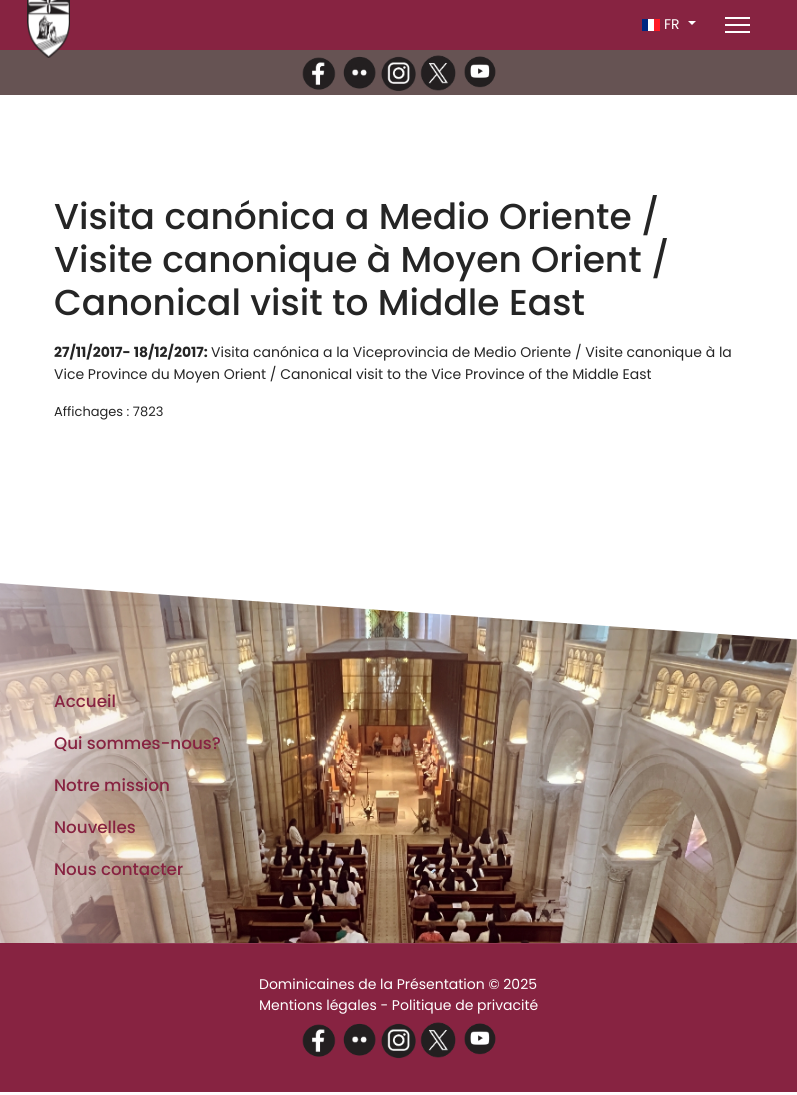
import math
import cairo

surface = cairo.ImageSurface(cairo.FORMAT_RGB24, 797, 1095)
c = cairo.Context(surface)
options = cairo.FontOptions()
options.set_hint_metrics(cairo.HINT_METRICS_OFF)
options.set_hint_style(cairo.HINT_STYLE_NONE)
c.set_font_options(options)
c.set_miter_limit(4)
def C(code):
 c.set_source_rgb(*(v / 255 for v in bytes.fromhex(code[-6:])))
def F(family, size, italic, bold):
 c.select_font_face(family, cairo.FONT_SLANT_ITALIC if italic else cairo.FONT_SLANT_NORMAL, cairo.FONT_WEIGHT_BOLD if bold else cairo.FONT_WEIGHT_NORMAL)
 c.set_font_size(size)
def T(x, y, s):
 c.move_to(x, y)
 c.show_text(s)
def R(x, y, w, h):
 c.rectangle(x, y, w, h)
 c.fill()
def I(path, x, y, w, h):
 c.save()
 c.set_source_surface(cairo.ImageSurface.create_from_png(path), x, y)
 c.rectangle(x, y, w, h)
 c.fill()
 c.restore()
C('ffffff')
c.paint()
C('872341')
R(0,0,797,50)
C('665353')
R(0,50,797,45)
I('1.png',27,0,43,58)
I('2.png',642,19,18,12)
F('Poppins',14,0,0)
C('ffffff')
T(664,29,'FR')
c.new_path()
c.move_to(688,21)
c.line_to(696,21)
c.line_to(692,25)
c.close_path()
c.fill()
R(725,17,25,2)
R(725,24,25,2)
R(725,31,25,2)
I('3.png',302,57,34,33)
I('4.png',343,56,33,33)
I('5.png',381,56,35,35)
I('6.png',420,55,36,36)
I('7.png',464,56,32,32)
F('Poppins Medium',36,0,0)
C('252525')
T(54,229,'Visita canónica a Medio Oriente /')
T(54,272,'Visite canonique à Moyen Orient /')
T(54,315,'Canonical visit to Middle East')
F('Poppins',14,0,1)
T(54,357,'27/11/2017- 18/12/2017:')
F('Poppins',14,0,0)
T(211,357,'Visita canónica a la Viceprovincia de Medio Oriente / Visite canonique à la')
T(54,379,'Vice Province du Moyen Orient / Canonical visit to the Vice Province of the Middle East')
F('Poppins',13,0,0)
T(54,416,'Affichages : 7823')
I('8.png',0,583,797,360)
C('ffffff')
c.new_path()
c.move_to(-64,439)
c.line_to(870,504)
c.curve_to(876,504,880,509,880,515)
c.line_to(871,634)
c.curve_to(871,640,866,644,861,644)
c.line_to(-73,578)
c.curve_to(-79,578,-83,573,-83,568)
c.line_to(-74,448)
c.curve_to(-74,442,-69,438,-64,439)
c.close_path()
c.fill()
F('Poppins Medium',16.75,0,0)
C('872341')
T(54,707,'Accueil')
T(54,749,'Qui sommes-nous?')
T(54,791,'Notre mission')
T(54,833,'Nouvelles')
T(54,875,'Nous contacter')
R(0,943,797,149)
C('933954')
R(54,943,690,1)
F('Poppins',14,0,0)
C('ffffff')
T(259,989,'Dominicaines de la Présentation © 2025')
T(259,1010,'Mentions légales - Politique de privacité')
I('9.png',302,1024,34,33)
I('10.png',343,1023,33,33)
I('11.png',381,1023,35,36)
I('12.png',420,1022,36,36)
I('13.png',464,1023,32,32)
surface.write_to_png('o.png')
